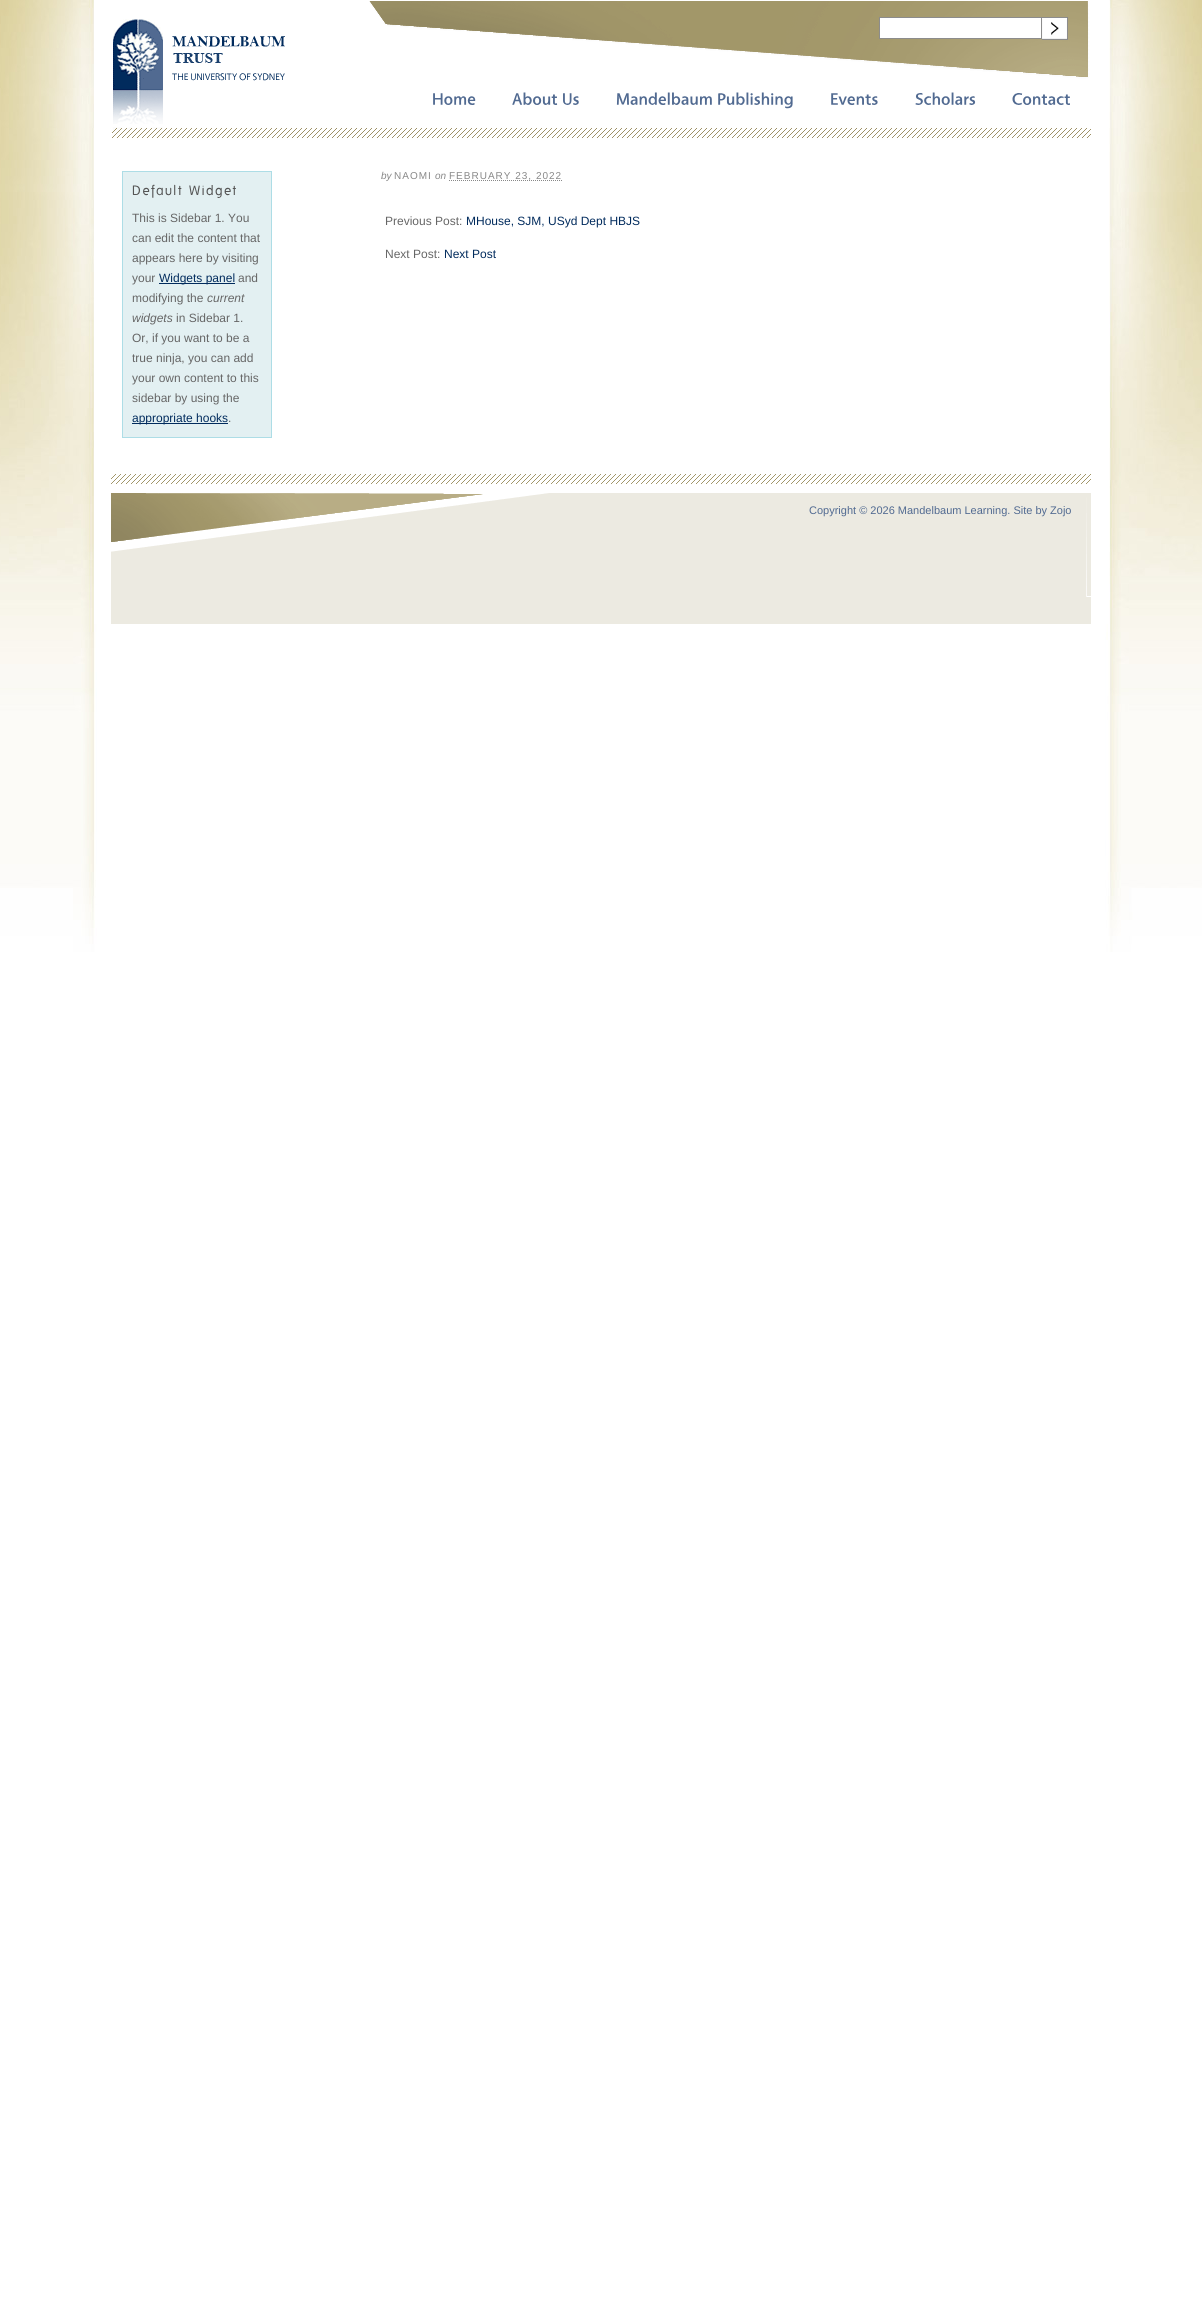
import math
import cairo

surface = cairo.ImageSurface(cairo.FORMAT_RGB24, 1202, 2316)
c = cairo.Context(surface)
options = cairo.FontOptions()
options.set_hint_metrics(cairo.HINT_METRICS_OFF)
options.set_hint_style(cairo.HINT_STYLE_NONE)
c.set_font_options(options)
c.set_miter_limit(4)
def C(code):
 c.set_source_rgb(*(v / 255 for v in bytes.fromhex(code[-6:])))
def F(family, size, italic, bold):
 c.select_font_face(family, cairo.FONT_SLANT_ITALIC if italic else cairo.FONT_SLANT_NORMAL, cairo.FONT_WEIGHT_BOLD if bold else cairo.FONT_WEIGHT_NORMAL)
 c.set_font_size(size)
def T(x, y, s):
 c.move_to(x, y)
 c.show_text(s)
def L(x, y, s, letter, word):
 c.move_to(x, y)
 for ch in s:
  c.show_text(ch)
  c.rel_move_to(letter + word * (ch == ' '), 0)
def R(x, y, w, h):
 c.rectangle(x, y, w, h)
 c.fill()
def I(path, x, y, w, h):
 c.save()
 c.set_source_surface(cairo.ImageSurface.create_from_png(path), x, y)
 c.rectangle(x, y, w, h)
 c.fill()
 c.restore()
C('ffffff')
c.paint()
I('1.png',0,0,1202,952)
C('ffffff')
R(94,0,1015,624)
I('2.png',112,1,979,137)
I('3.png',113,19,172,105)
c.rectangle(879.5,17.5,162,21)
c.fill_preserve()
C('8c8c8c')
c.set_line_width(1)
c.stroke()
I('4.png',1042,17,26,23)
I('5.png',433,93,43,12)
I('6.png',512,92,46,13)
I('7.png',563,93,16,12)
I('8.png',616,92,96,13)
I('9.png',718,92,75,17)
I('10.png',831,93,47,12)
I('11.png',915,92,61,13)
I('12.png',1012,93,58,12)
C('e3f0f2')
c.rectangle(122.5,171.5,149,266)
c.fill_preserve()
C('addde6')
c.stroke()
I('13.png',132,184,50,14)
I('14.png',189,185,47,13)
F('Liberation Sans',12,0,0)
C('666666')
T(132,222,'This is Sidebar 1. You')
T(132,242,'can edit the content that')
T(132,262,'appears here by visiting')
T(132,282,'your')
C('012b5d')
R(159,283,76,1)
T(159,282,'Widgets panel')
C('666666')
T(238,282,'and')
T(132,302,'modifying the')
F('Liberation Sans',12,1,0)
T(207,302,'current')
T(132,322,'widgets')
F('Liberation Sans',12,0,0)
T(176,322,'in Sidebar 1.')
T(132,342,'Or, if you want to be a')
T(132,362,'true ninja, you can add')
T(132,382,'your own content to this')
T(132,402,'sidebar by using the')
C('012b5d')
R(132,423,96,1)
T(132,422,'appropriate hooks')
C('666666')
T(228,422,'.')
F('Liberation Sans',10,1,0)
C('888888')
T(381,179,'by')
F('Liberation Sans',10,0,0)
L(394,179,'NAOMI',1,0)
F('Liberation Sans',10,1,0)
T(435,179,'on')
c.new_path()
c.move_to(449,180.5)
c.line_to(562,180.5)
c.set_dash([1,1])
c.stroke()
F('Liberation Sans',10,0,0)
L(449,179,'FEBRUARY 23, 2022',1,0)
F('Liberation Sans',12,0,0)
C('666666')
T(385,225,'Previous Post:')
C('012b5d')
T(466,225,'MHouse, SJM, USyd Dept HBJS')
C('666666')
T(385,258,'Next Post:')
C('012b5d')
T(444,258,'Next Post')
C('eceae1')
R(111,597,980,27)
I('15.png',111,474,980,123)
F('Liberation Sans',11,0,0)
C('516a91')
T(809,514,'Copyright © 2026 Mandelbaum Learning. Site by Zojo')
surface.write_to_png('o.png')
